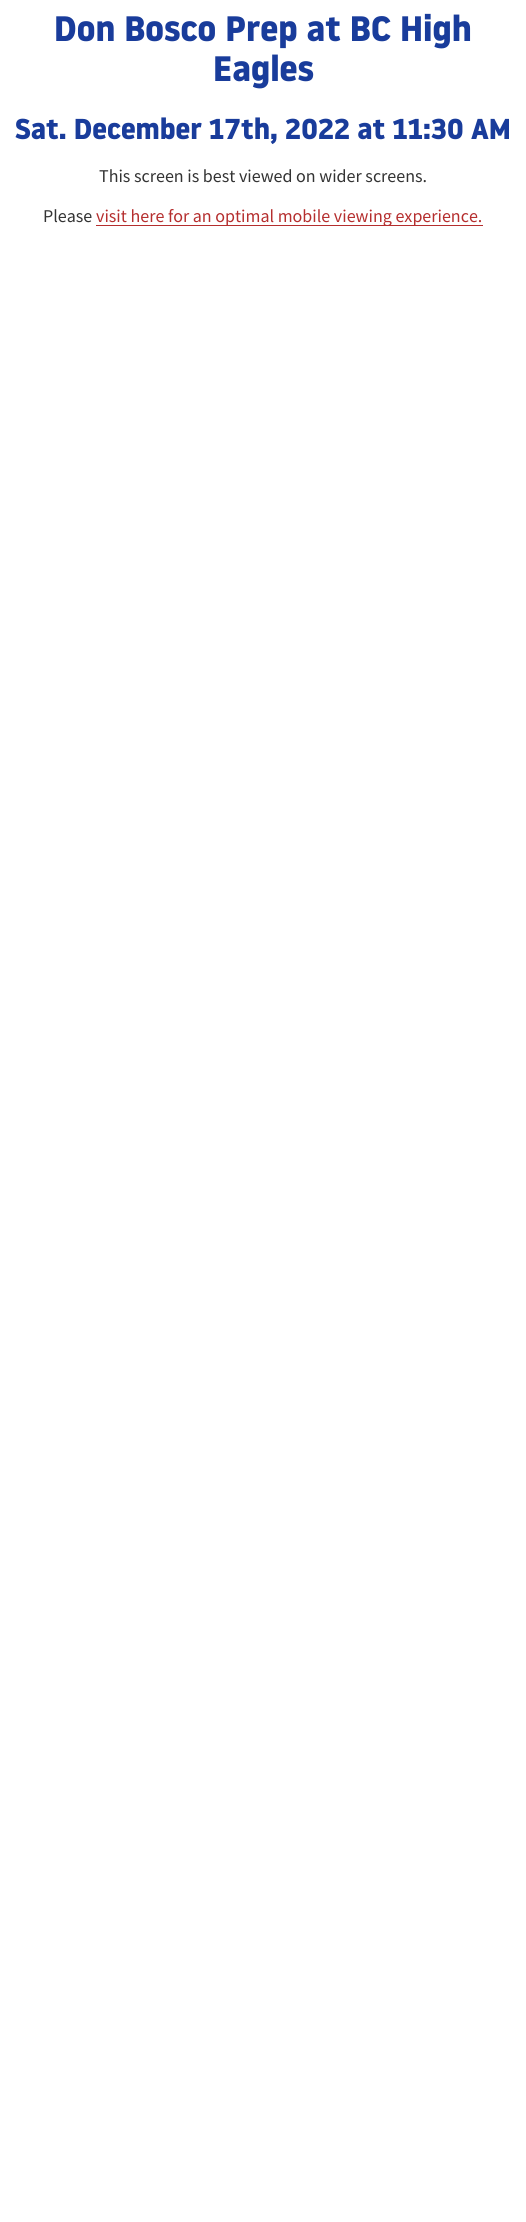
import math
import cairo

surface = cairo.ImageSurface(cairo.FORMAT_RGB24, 526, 2222)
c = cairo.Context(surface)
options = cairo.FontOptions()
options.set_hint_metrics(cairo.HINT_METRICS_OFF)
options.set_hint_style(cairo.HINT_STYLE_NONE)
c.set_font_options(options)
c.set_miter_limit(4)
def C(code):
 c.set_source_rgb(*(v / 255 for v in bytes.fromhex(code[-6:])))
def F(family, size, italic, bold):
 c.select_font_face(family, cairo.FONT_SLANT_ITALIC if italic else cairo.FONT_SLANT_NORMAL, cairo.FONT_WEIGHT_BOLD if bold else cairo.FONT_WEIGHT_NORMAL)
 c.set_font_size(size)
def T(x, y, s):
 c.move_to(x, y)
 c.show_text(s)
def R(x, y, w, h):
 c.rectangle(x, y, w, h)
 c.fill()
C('ffffff')
c.paint()
F('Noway',35.25,0,1)
C('193c9b')
T(54,41,'Don Bosco Prep at BC High')
T(213,81,'Eagles')
F('Noway',28.75,0,1)
T(15,139,'Sat. December 17th, 2022 at 11:30 AM')
F('Source Sans Pro',18,0,0)
C('333333')
T(99,182,'This screen is best viewed on wider screens.')
T(43,222,'Please')
C('b52e2e')
R(96,225,387,1)
T(96,222,'visit here for an optimal mobile viewing experience.')
surface.write_to_png('o.png')
